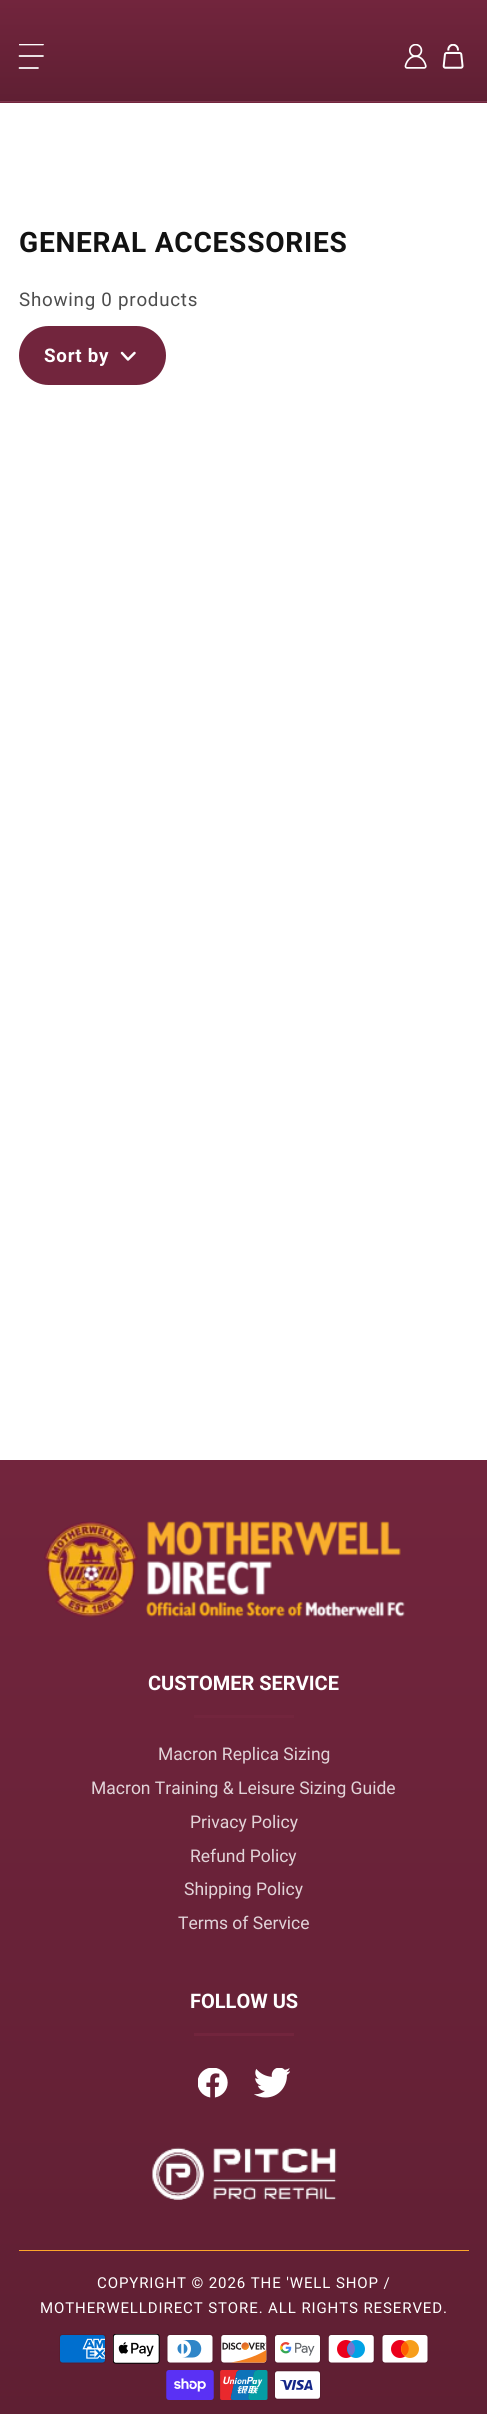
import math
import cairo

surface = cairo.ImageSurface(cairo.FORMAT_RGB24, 487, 2414)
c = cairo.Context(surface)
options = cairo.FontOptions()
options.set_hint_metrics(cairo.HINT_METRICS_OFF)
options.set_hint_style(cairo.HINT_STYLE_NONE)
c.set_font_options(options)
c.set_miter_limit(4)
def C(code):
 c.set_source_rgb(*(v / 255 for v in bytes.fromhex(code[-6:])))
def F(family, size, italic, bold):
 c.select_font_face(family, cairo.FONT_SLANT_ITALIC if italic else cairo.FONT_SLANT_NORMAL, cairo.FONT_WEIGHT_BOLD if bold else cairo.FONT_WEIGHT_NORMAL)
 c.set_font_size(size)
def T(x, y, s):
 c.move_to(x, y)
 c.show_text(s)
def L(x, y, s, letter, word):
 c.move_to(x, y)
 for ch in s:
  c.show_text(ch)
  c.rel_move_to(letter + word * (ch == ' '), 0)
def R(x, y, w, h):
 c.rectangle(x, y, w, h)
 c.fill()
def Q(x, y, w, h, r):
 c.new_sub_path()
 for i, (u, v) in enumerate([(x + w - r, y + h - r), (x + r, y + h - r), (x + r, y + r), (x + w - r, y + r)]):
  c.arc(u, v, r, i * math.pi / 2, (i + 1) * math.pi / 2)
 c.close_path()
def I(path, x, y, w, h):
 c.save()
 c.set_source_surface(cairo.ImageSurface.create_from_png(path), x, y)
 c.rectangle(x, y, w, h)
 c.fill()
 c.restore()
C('ffffff')
c.paint()
gradient = cairo.LinearGradient(244,0,244,101)
gradient.add_color_stop_rgba(0,0.447,0.145,0.239,1)
gradient.add_color_stop_rgba(1,0.373,0.122,0.2,1)
c.set_source(gradient)
R(0,0,487,101)
gradient = cairo.LinearGradient(244,101,244,203)
gradient.add_color_stop_rgba(0,0.447,0.145,0.239,1)
gradient.add_color_stop_rgba(1,0.373,0.122,0.2,1)
c.set_source(gradient)
R(0,102,487,1)
C('7d364d')
R(0,101,487,1)
c.save()
c.rectangle(19,44,25,25)
c.clip()
c.new_path()
c.move_to(19.5,44.5)
c.line_to(43,44.5)
C('ffffff')
c.set_line_width(1.7)
c.set_line_cap(cairo.LINE_CAP_ROUND)
c.stroke()
c.restore()
c.new_path()
c.move_to(19.5,56)
c.line_to(43,56)
c.move_to(19.5,68)
c.line_to(38,68)
C('ffffff')
c.set_line_width(1.7)
c.set_line_cap(cairo.LINE_CAP_ROUND)
c.stroke()
I('1.png',404,44,23,25)
I('2.png',442,44,22,25)
F('Roboto',28.1,0,1)
C('121212')
L(19,252,'GENERAL ACCESSORIES',.75,0)
F('Roboto',18.75,0,0)
C('4d4d4d')
L(19,306,'Showing 0 products',.75,0)
C('72253d')
Q(19,326,147,59,29.5)
c.fill()
F('Roboto',18.75,0,1)
C('ffffff')
L(44,362,'Sort by',.75,0)
c.new_path()
c.move_to(122,353)
c.line_to(128,359.5)
c.line_to(134.5,353)
c.set_line_width(2.5)
c.set_line_join(cairo.LINE_JOIN_ROUND)
c.stroke()
gradient = cairo.LinearGradient(244,1460,244,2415)
gradient.add_color_stop_rgba(0,0.447,0.145,0.239,1)
gradient.add_color_stop_rgba(1,0.373,0.122,0.2,1)
c.set_source(gradient)
R(0,1460,487,954)
I('3.png',44,1521,361,96)
F('Roboto',20,0,1)
C('ffffff')
T(148,1690,'CUSTOMER SERVICE')
C('72253d')
R(194,1715,100,3)
F('Roboto',17.5,0,0)
C('e2d3d8')
T(158,1760,'Macron Replica Sizing')
T(91,1794,'Macron Training & Leisure Sizing Guide')
T(190,1828,'Privacy Policy')
T(190,1862,'Refund Policy')
T(184,1895,'Shipping Policy')
T(178,1929,'Terms of Service')
F('Roboto',20,0,1)
C('ffffff')
T(190,2008,'FOLLOW US')
C('72253d')
R(194,2033,100,3)
I('4.png',198,2068,30,30)
I('5.png',254,2068,36,30)
I('6.png',151,2147,186,53)
C('fea52b')
R(19,2250,450,1)
F('Roboto',15,0,0)
C('ffffff')
L(97,2288,'COPYRIGHT © 2026 THE \'WELL SHOP /',.9,0)
L(40,2313,'MOTHERWELLDIRECT STORE. ALL RIGHTS RESERVED.',.9,0)
I('7.png',59,2334,47,30)
I('8.png',113,2334,47,30)
I('9.png',166,2334,48,30)
I('10.png',220,2334,47,30)
I('11.png',274,2334,47,30)
I('12.png',328,2334,47,30)
I('13.png',381,2334,48,30)
I('14.png',166,2370,48,30)
I('15.png',220,2370,48,30)
I('16.png',274,2370,47,30)
surface.write_to_png('o.png')
